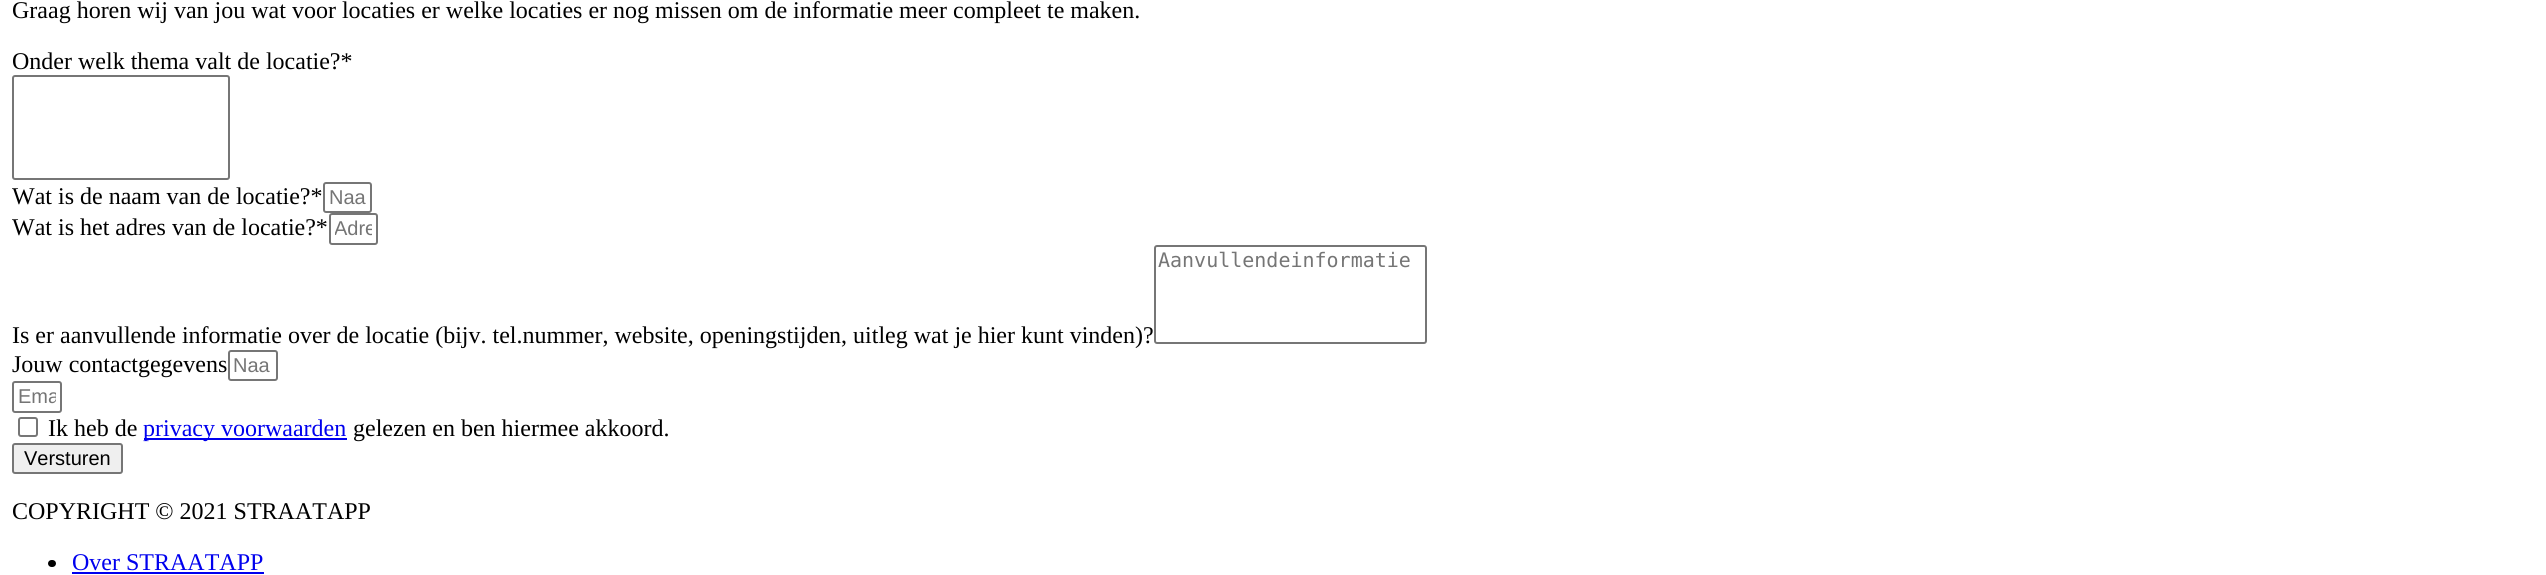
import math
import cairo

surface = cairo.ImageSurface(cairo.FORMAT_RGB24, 2546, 575)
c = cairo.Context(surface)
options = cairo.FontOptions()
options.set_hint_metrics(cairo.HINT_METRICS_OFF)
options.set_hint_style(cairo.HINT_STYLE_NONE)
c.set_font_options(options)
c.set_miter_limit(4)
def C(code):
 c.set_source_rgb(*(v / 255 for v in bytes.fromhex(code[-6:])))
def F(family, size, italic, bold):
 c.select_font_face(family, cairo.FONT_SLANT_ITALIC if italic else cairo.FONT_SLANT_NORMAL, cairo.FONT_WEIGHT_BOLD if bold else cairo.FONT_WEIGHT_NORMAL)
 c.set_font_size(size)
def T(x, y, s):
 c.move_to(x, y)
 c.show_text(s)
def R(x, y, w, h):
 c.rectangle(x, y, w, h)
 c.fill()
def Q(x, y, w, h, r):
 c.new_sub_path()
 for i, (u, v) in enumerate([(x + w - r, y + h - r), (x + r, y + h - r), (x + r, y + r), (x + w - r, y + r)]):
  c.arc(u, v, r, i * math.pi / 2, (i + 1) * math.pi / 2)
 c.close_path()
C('ffffff')
c.paint()
F('Liberation Serif',24,0,0)
C('000000')
T(12,18,'Graag horen wij van jou wat voor locaties er welke locaties er nog missen om de informatie meer compleet te maken.')
T(12,69,'Onder welk thema valt de locatie?*')
Q(13,76,216,103,2)
C('767676')
c.stroke()
C('000000')
T(12,204,'Wat is de naam van de locatie?*')
Q(324,183,47,29,2)
C('767676')
c.stroke()
F('Liberation Sans',20,0,0)
C('757575')
T(329,204,'Naa')
F('Liberation Serif',24,0,0)
C('000000')
T(12,235,'Wat is het adres van de locatie?*')
Q(330,214,47,30,2)
C('767676')
c.stroke()
c.save()
c.rectangle(335,218,37,22)
c.clip()
F('Liberation Sans',20,0,0)
C('757575')
T(334,235,'Adre')
c.restore()
Q(1155,246,271,97,2)
c.stroke()
F('DejaVu Sans Mono',20,0,0)
C('757575')
T(1158,267,'Aanvullendeinformatie')
F('Liberation Serif',24,0,0)
C('000000')
T(12,343,'Is er aanvullende informatie over de locatie (bijv. tel.nummer, website, openingstijden, uitleg wat je hier kunt vinden)?')
T(12,372,'Jouw contactgegevens')
Q(229,351,48,29,2)
C('767676')
c.stroke()
F('Liberation Sans',20,0,0)
C('757575')
T(233,372,'Naa')
Q(13,382,48,30,2)
C('767676')
c.stroke()
c.save()
c.rectangle(18,386,38,22)
c.clip()
C('757575')
T(18,403,'Ema')
c.restore()
Q(19,418,18,18,2)
c.stroke()
F('Liberation Serif',24,0,0)
C('000000')
T(48,436,'Ik heb de')
C('0000ee')
R(144,438,203,2)
T(143,436,'privacy voorwaarden')
C('000000')
T(353,436,'gelezen en ben hiermee akkoord.')
C('efefef')
Q(13,444,109,29,2)
c.fill_preserve()
C('767676')
c.stroke()
F('Liberation Sans',20,0,0)
C('000000')
T(24,465,'Versturen')
F('Liberation Serif',24,0,0)
T(12,519,'COPYRIGHT © 2021 STRAATAPP')
Q(48,560,8,7,3.5)
c.fill()
C('0000ee')
T(72,570,'Over STRAATAPP')
R(72,572,192,2)
surface.write_to_png('o.png')
